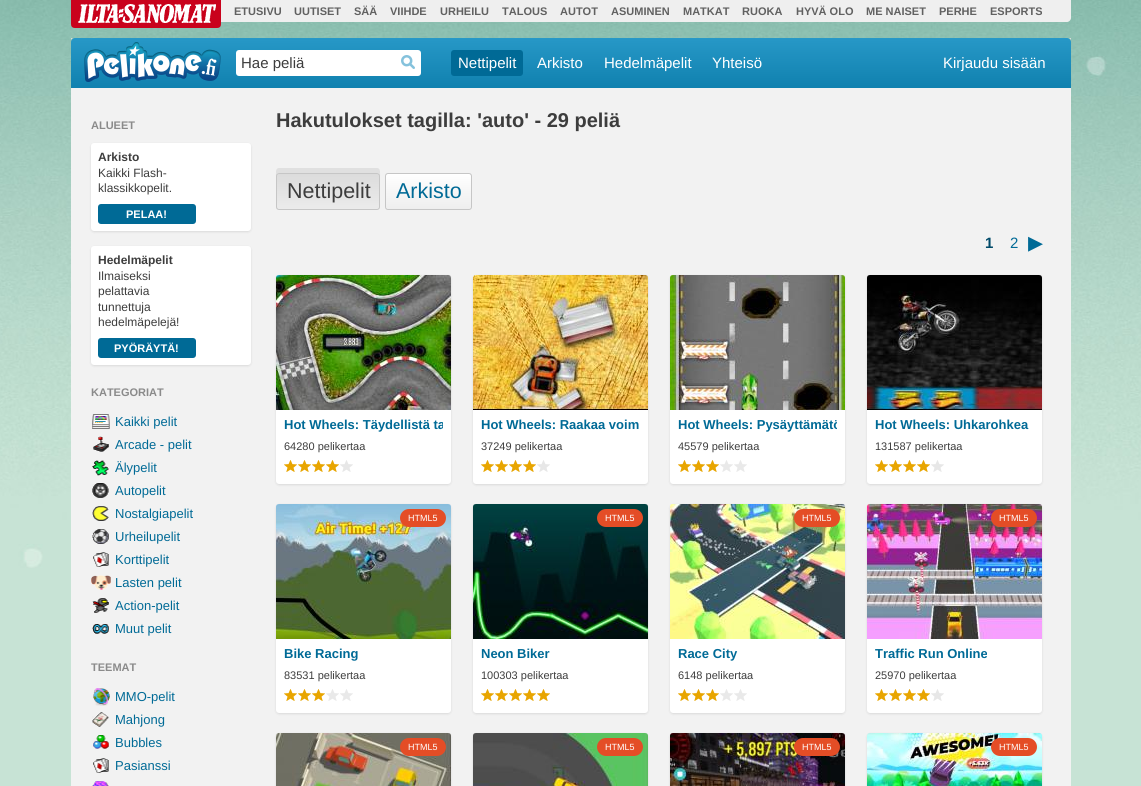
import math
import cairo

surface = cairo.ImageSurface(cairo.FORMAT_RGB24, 1141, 786)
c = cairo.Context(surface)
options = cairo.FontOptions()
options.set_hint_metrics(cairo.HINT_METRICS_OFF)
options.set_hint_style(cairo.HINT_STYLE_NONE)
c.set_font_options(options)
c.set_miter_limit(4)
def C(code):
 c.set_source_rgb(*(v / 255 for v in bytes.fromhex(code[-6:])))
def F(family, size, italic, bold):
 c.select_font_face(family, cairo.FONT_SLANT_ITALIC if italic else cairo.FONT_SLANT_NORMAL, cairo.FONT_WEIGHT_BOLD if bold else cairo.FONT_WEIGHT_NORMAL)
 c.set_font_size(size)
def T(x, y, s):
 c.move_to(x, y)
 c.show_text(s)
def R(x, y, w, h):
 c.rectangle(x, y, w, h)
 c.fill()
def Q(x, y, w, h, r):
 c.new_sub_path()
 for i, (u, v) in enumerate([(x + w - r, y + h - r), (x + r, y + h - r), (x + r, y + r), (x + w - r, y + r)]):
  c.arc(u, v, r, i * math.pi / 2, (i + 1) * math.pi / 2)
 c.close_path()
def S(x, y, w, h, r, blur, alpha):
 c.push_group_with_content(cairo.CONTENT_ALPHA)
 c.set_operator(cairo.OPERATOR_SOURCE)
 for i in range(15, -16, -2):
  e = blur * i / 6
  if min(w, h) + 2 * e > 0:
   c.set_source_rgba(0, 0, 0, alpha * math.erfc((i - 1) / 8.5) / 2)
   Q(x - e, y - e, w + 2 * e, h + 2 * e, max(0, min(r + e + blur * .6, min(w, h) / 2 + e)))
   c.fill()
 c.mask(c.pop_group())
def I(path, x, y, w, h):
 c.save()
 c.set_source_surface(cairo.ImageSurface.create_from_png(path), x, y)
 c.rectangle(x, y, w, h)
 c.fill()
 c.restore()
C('ffffff')
c.paint()
I('1.png',0,0,1141,786)
C('efefef')
c.new_path()
c.move_to(71,0)
c.line_to(1071,0)
c.line_to(1071,18)
c.curve_to(1071,20,1069,22,1067,22)
c.line_to(71,22)
c.close_path()
c.fill()
I('2.png',71,0,150,28)
F('Liberation Sans',11,0,1)
C('616161')
T(234,15,'ETUSIVU')
T(294,15,'UUTISET')
T(354,15,'SÄÄ')
T(390,15,'VIIHDE')
T(440,15,'URHEILU')
T(502,15,'TALOUS')
T(560,15,'AUTOT')
T(611,15,'ASUMINEN')
T(683,15,'MATKAT')
T(742,15,'RUOKA')
T(796,15,'HYVÄ OLO')
T(866,15,'ME NAISET')
T(939,15,'PERHE')
T(990,15,'ESPORTS')
c.save()
c.rectangle(71,38,1000,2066)
c.clip()
C('e0e0e0')
c.new_path()
c.move_to(74,33)
c.curve_to(70,33,71,39,71,41)
c.curve_to(71,39,72,38,74,38)
c.line_to(1068,38)
c.curve_to(1070,38,1071,39,1071,41)
c.curve_to(1071,39,1072,33,1068,33)
c.close_path()
c.fill()
c.restore()
gradient = cairo.LinearGradient(571,38,571,88)
gradient.add_color_stop_rgba(0,0.153,0.596,0.78,1)
gradient.add_color_stop_rgba(1,0.063,0.506,0.686,1)
c.set_source(gradient)
c.new_path()
c.move_to(75,38)
c.line_to(1067,38)
c.curve_to(1069,38,1071,40,1071,42)
c.line_to(1071,88)
c.line_to(71,88)
c.line_to(71,42)
c.curve_to(71,40,73,38,75,38)
c.close_path()
c.fill()
I('3.png',84,42,137,40)
C('ffffff')
Q(236,50,185,26,3)
c.fill()
F('Liberation Sans',15,0,0)
C('3d3d3d')
T(241,68,'Hae peliä')
C('85c2dc')
R(401,55,14,14)
I('4.png',401,55,15,15)
C('006a96')
Q(451,50,72,26,3)
c.fill()
C('ffffff')
T(458,68,'Nettipelit')
T(537,68,'Arkisto')
T(604,68,'Hedelmäpelit')
T(712,68,'Yhteisö')
T(943,68,'Kirjaudu sisään')
C('f2f2f2')
R(71,88,1000,698)
F('Liberation Sans',11,0,1)
C('8b8b8b')
T(91,129,'ALUEET')
C('000000')
S(91,144,160,88,3,1,.1)
C('ffffff')
Q(91,143,160,88,3)
c.fill()
F('Liberation Sans',12,0,1)
C('3d3d3d')
T(98,161,'Arkisto')
F('Liberation Sans',12,0,0)
T(98,177,'Kaikki Flash-')
T(98,192,'klassikkopelit.')
C('006a96')
Q(98,204,98,20,3)
c.fill()
F('Liberation Sans',11,0,1)
C('ffffff')
T(126,218,'PELAA!')
C('000000')
S(91,247,160,119,3,1,.1)
C('ffffff')
Q(91,246,160,119,3)
c.fill()
F('Liberation Sans',12,0,1)
C('3d3d3d')
T(98,264,'Hedelmäpelit')
F('Liberation Sans',12,0,0)
T(98,280,'Ilmaiseksi')
T(98,295,'pelattavia')
T(98,311,'tunnettuja')
T(98,326,'hedelmäpelejä!')
C('006a96')
Q(98,338,98,20,3)
c.fill()
F('Liberation Sans',11,0,1)
C('ffffff')
T(114,352,'PYÖRÄYTÄ!')
C('8b8b8b')
T(91,396,'KATEGORIAT')
I('5.png',92,414,18,15)
F('Liberation Sans',13,0,0)
C('006a96')
T(115,426,'Kaikki pelit')
I('6.png',93,436,16,16)
T(115,449,'Arcade - pelit')
I('7.png',92,460,17,16)
T(115,472,'Älypelit')
I('8.png',92,483,17,15)
T(115,495,'Autopelit')
I('9.png',92,506,17,15)
T(115,518,'Nostalgiapelit')
I('10.png',92,529,17,15)
T(115,541,'Urheilupelit')
I('11.png',93,552,16,15)
T(115,564,'Korttipelit')
I('12.png',91,575,20,15)
T(115,587,'Lasten pelit')
I('13.png',92,598,17,15)
T(115,610,'Action-pelit')
I('14.png',92,624,17,10)
T(115,633,'Muut pelit')
F('Liberation Sans',11,0,1)
C('8b8b8b')
T(91,671,'TEEMAT')
I('15.png',93,688,17,18)
F('Liberation Sans',13,0,0)
C('006a96')
T(115,701,'MMO-pelit')
I('16.png',92,712,17,15)
T(115,724,'Mahjong')
I('17.png',93,735,16,14)
T(115,747,'Bubbles')
I('11.png',93,758,16,15)
T(115,770,'Pasianssi')
I('18.png',92,781,17,5)
F('Liberation Sans',20,0,1)
C('3d3d3d')
T(276,127,'Hakutulokset tagilla: \'auto\' - 29 peliä')
C('e0e0e0')
c.new_path()
c.move_to(279,168)
c.curve_to(275,168,276,174,276,176)
c.curve_to(276,174,277,173,279,173)
c.line_to(377,173)
c.curve_to(379,173,380,174,380,176)
c.curve_to(380,174,381,168,377,168)
c.close_path()
c.fill()
c.save()
Q(276,173,104,37,3)
c.clip()
gradient = cairo.LinearGradient(328,174,328,209)
gradient.add_color_stop_rgba(0,0.863,0.863,0.863,1)
gradient.add_color_stop_rgba(1,0.922,0.922,0.922,1)
c.set_source(gradient)
R(276,174,104,35)
c.restore()
Q(276.5,173.5,103,36,2.5)
C('c6c6c6')
c.set_line_width(1)
c.stroke()
F('Liberation Sans',21.5,0,0)
C('3d3d3d')
T(287,198,'Nettipelit')
gradient = cairo.LinearGradient(429,174,429,209)
gradient.add_color_stop_rgba(0,1,1,1,1)
gradient.add_color_stop_rgba(1,0.933,0.933,0.933,1)
c.set_source(gradient)
Q(386,174,85,35,2)
c.fill()
Q(385.5,173.5,86,36,2.5)
C('c6c6c6')
c.stroke()
C('006a96')
T(396,198,'Arkisto')
F('Liberation Sans',15,0,1)
C('004a69')
T(985,248,'1')
F('Liberation Sans',15,0,0)
C('006a96')
T(1010,248,'2')
F('DejaVu Sans',30,0,0)
T(1028,252,'▸')
C('000000')
S(276,276,175,209,3,1,.1)
C('ffffff')
Q(276,275,175,209,3)
c.fill()
I('19.png',276,275,175,135)
c.save()
c.rectangle(284,415,159,20)
c.clip()
F('Liberation Sans',13,0,1)
C('006a96')
T(284,429,'Hot Wheels: Täydellistä ta')
c.restore()
F('Liberation Sans',11,0,0)
C('3d3d3d')
T(284,450,'64280 pelikertaa')
I('20.png',284,460,69,12)
C('000000')
S(473,276,175,209,3,1,.1)
C('ffffff')
Q(473,275,175,209,3)
c.fill()
I('21.png',473,275,175,135)
F('Liberation Sans',13,0,1)
C('006a96')
T(481,429,'Hot Wheels: Raakaa voim')
F('Liberation Sans',11,0,0)
C('3d3d3d')
T(481,450,'37249 pelikertaa')
I('20.png',481,460,69,12)
C('000000')
S(670,276,175,209,3,1,.1)
C('ffffff')
Q(670,275,175,209,3)
c.fill()
I('22.png',670,275,175,135)
c.save()
c.rectangle(678,415,159,20)
c.clip()
F('Liberation Sans',13,0,1)
C('006a96')
T(678,429,'Hot Wheels: Pysäyttämätö')
c.restore()
C('3d3d3d')
T(678,450,'45579 pelikertaa')
I('23.png',678,460,69,12)
C('000000')
S(867,276,175,209,3,1,.1)
C('ffffff')
Q(867,275,175,209,3)
c.fill()
I('24.png',867,275,175,135)
F('Liberation Sans',13,0,1)
C('006a96')
T(875,429,'Hot Wheels: Uhkarohkea')
F('Liberation Sans',11,0,0)
C('3d3d3d')
T(875,450,'131587 pelikertaa')
I('20.png',875,460,69,12)
C('000000')
S(276,505,175,209,3,1,.1)
C('ffffff')
Q(276,504,175,209,3)
c.fill()
I('25.png',276,504,175,135)
C('e44d26')
Q(400,509,46,18,9)
c.fill()
F('Liberation Sans',9,0,0)
C('ffffff')
T(408,521,'HTML5')
F('Liberation Sans',13,0,1)
C('006a96')
T(284,658,'Bike Racing')
F('Liberation Sans',11,0,0)
C('3d3d3d')
T(284,679,'83531 pelikertaa')
I('23.png',284,689,69,12)
C('000000')
S(473,505,175,209,3,1,.1)
C('ffffff')
Q(473,504,175,209,3)
c.fill()
I('26.png',473,504,175,135)
C('e44d26')
Q(597,509,46,18,9)
c.fill()
F('Liberation Sans',9,0,0)
C('ffffff')
T(605,521,'HTML5')
F('Liberation Sans',13,0,1)
C('006a96')
T(481,658,'Neon Biker')
F('Liberation Sans',11,0,0)
C('3d3d3d')
T(481,679,'100303 pelikertaa')
I('27.png',481,689,69,12)
C('000000')
S(670,505,175,209,3,1,.1)
C('ffffff')
Q(670,504,175,209,3)
c.fill()
I('28.png',670,504,175,135)
C('e44d26')
Q(794,509,46,18,9)
c.fill()
F('Liberation Sans',9,0,0)
C('ffffff')
T(802,521,'HTML5')
F('Liberation Sans',13,0,1)
C('006a96')
T(678,658,'Race City')
F('Liberation Sans',11,0,0)
C('3d3d3d')
T(678,679,'6148 pelikertaa')
I('23.png',678,689,69,12)
C('000000')
S(867,505,175,209,3,1,.1)
C('ffffff')
Q(867,504,175,209,3)
c.fill()
I('29.png',867,504,175,135)
C('e44d26')
Q(991,509,46,18,9)
c.fill()
F('Liberation Sans',9,0,0)
C('ffffff')
T(999,521,'HTML5')
F('Liberation Sans',13,0,1)
C('006a96')
T(875,658,'Traffic Run Online')
F('Liberation Sans',11,0,0)
C('3d3d3d')
T(875,679,'25970 pelikertaa')
I('20.png',875,689,69,12)
C('000000')
S(276,734,175,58,3,1,.1)
I('30.png',276,733,175,53)
C('e44d26')
Q(400,738,46,18,9)
c.fill()
F('Liberation Sans',9,0,0)
C('ffffff')
T(408,750,'HTML5')
C('000000')
S(473,734,175,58,3,1,.1)
I('31.png',473,733,175,53)
C('e44d26')
Q(597,738,46,18,9)
c.fill()
C('ffffff')
T(605,750,'HTML5')
C('000000')
S(670,734,175,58,3,1,.1)
I('32.png',670,733,175,53)
C('e44d26')
Q(794,738,46,18,9)
c.fill()
C('ffffff')
T(802,750,'HTML5')
C('000000')
S(867,734,175,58,3,1,.1)
I('33.png',867,733,175,53)
C('e44d26')
Q(991,738,46,18,9)
c.fill()
C('ffffff')
T(999,750,'HTML5')
surface.write_to_png('o.png')
